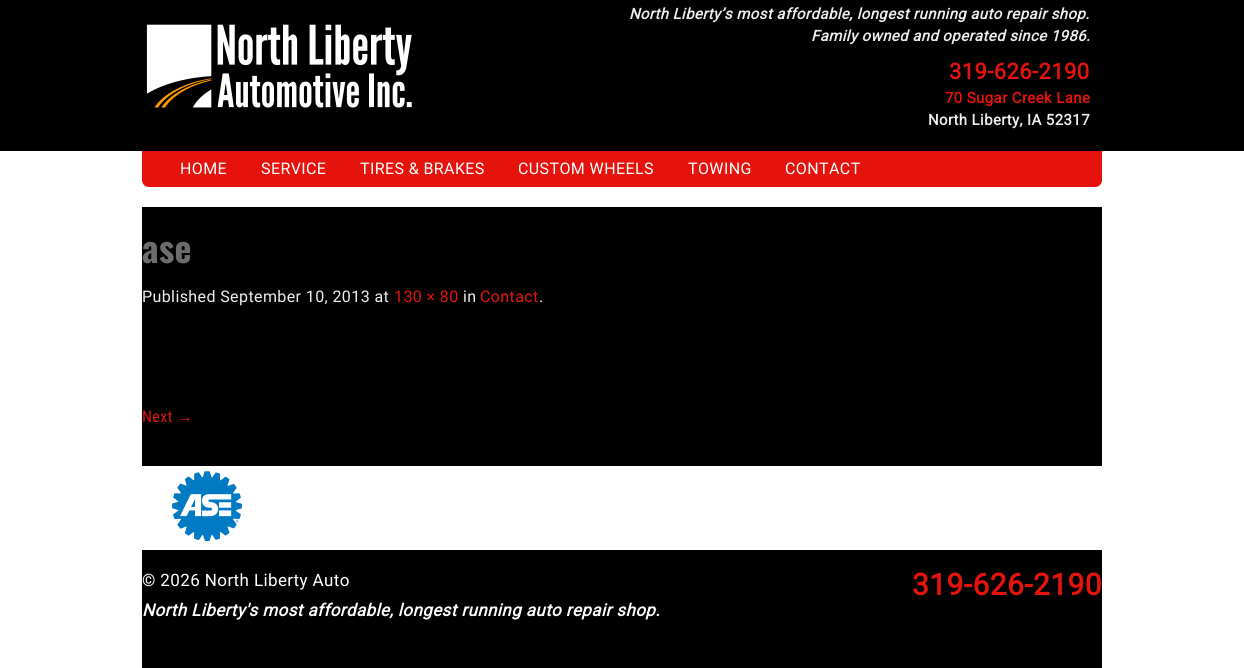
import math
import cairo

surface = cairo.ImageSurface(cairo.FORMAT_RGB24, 1244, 668)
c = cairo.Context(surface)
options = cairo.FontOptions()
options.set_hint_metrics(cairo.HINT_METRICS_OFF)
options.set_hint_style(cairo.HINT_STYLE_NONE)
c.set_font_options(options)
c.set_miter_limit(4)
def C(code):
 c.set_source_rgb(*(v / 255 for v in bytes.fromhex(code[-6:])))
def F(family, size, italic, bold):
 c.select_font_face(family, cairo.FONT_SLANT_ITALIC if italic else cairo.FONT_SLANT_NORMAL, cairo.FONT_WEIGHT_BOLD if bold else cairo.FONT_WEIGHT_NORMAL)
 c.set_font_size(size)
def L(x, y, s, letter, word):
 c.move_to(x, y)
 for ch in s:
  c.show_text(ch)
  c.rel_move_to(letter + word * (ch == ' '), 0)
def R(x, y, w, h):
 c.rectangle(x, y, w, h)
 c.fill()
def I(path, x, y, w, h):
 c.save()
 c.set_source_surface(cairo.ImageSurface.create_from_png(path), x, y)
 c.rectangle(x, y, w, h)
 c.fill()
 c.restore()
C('ffffff')
c.paint()
C('000000')
R(0,0,1244,151)
I('1.png',146,24,266,84)
F('Roboto',15,1,1)
C('eeeeee')
L(629,19,'North Liberty’s most affordable, longest running auto repair shop.',.4,0)
L(811,41,'Family owned and operated since 1986.',.4,0)
F('Roboto',22,0,1)
C('e5130c')
L(949,79,'319-626-2190',.4,0)
F('Roboto',15,0,1)
L(945,103,'70 Sugar Creek Lane',.4,0)
C('eeeeee')
L(928,125,'North Liberty, IA 52317',.4,0)
C('e5130c')
c.new_path()
c.move_to(142,151)
c.line_to(1102,151)
c.line_to(1102,180)
c.curve_to(1102,184,1099,187,1095,187)
c.line_to(149,187)
c.curve_to(145,187,142,184,142,180)
c.close_path()
c.fill()
F('Roboto',16,0,0)
C('ffffff')
L(180,174,'HOME',.4,0)
L(261,174,'SERVICE',.4,0)
L(360,174,'TIRES & BRAKES',.4,0)
L(518,174,'CUSTOM WHEELS',.4,0)
L(688,174,'TOWING',.4,0)
L(785,174,'CONTACT',.4,0)
C('000000')
R(142,207,960,259)
F('Oswald',36,0,1)
C('6d6d6d')
L(142,263,'ase',.4,0)
F('Roboto',16,0,0)
C('eeeeee')
L(142,302,'Published September 10, 2013 at',.4,0)
C('e5130c')
L(394,302,'130 × 80',.4,0)
C('eeeeee')
L(463,302,'in',.4,0)
C('e5130c')
L(480,302,'Contact',.4,0)
C('eeeeee')
L(539,302,'.',.4,0)
F('Roboto Condensed',16,0,0)
C('e5130c')
L(142,422,'Next',.4,0)
F('Liberation Serif',16,0,0)
L(177,422,'→',.4,0)
I('2.png',172,471,70,70)
C('000000')
R(142,550,960,118)
F('Roboto',17,0,0)
C('ffffff')
L(142,586,'© 2026 North Liberty Auto',.4,0)
F('Roboto',17,1,1)
L(142,616,'North Liberty\'s most affordable, longest running auto repair shop.',.4,0)
F('Roboto',30,0,1)
C('e5130c')
L(912,595,'319-626-2190',.4,0)
surface.write_to_png('o.png')
